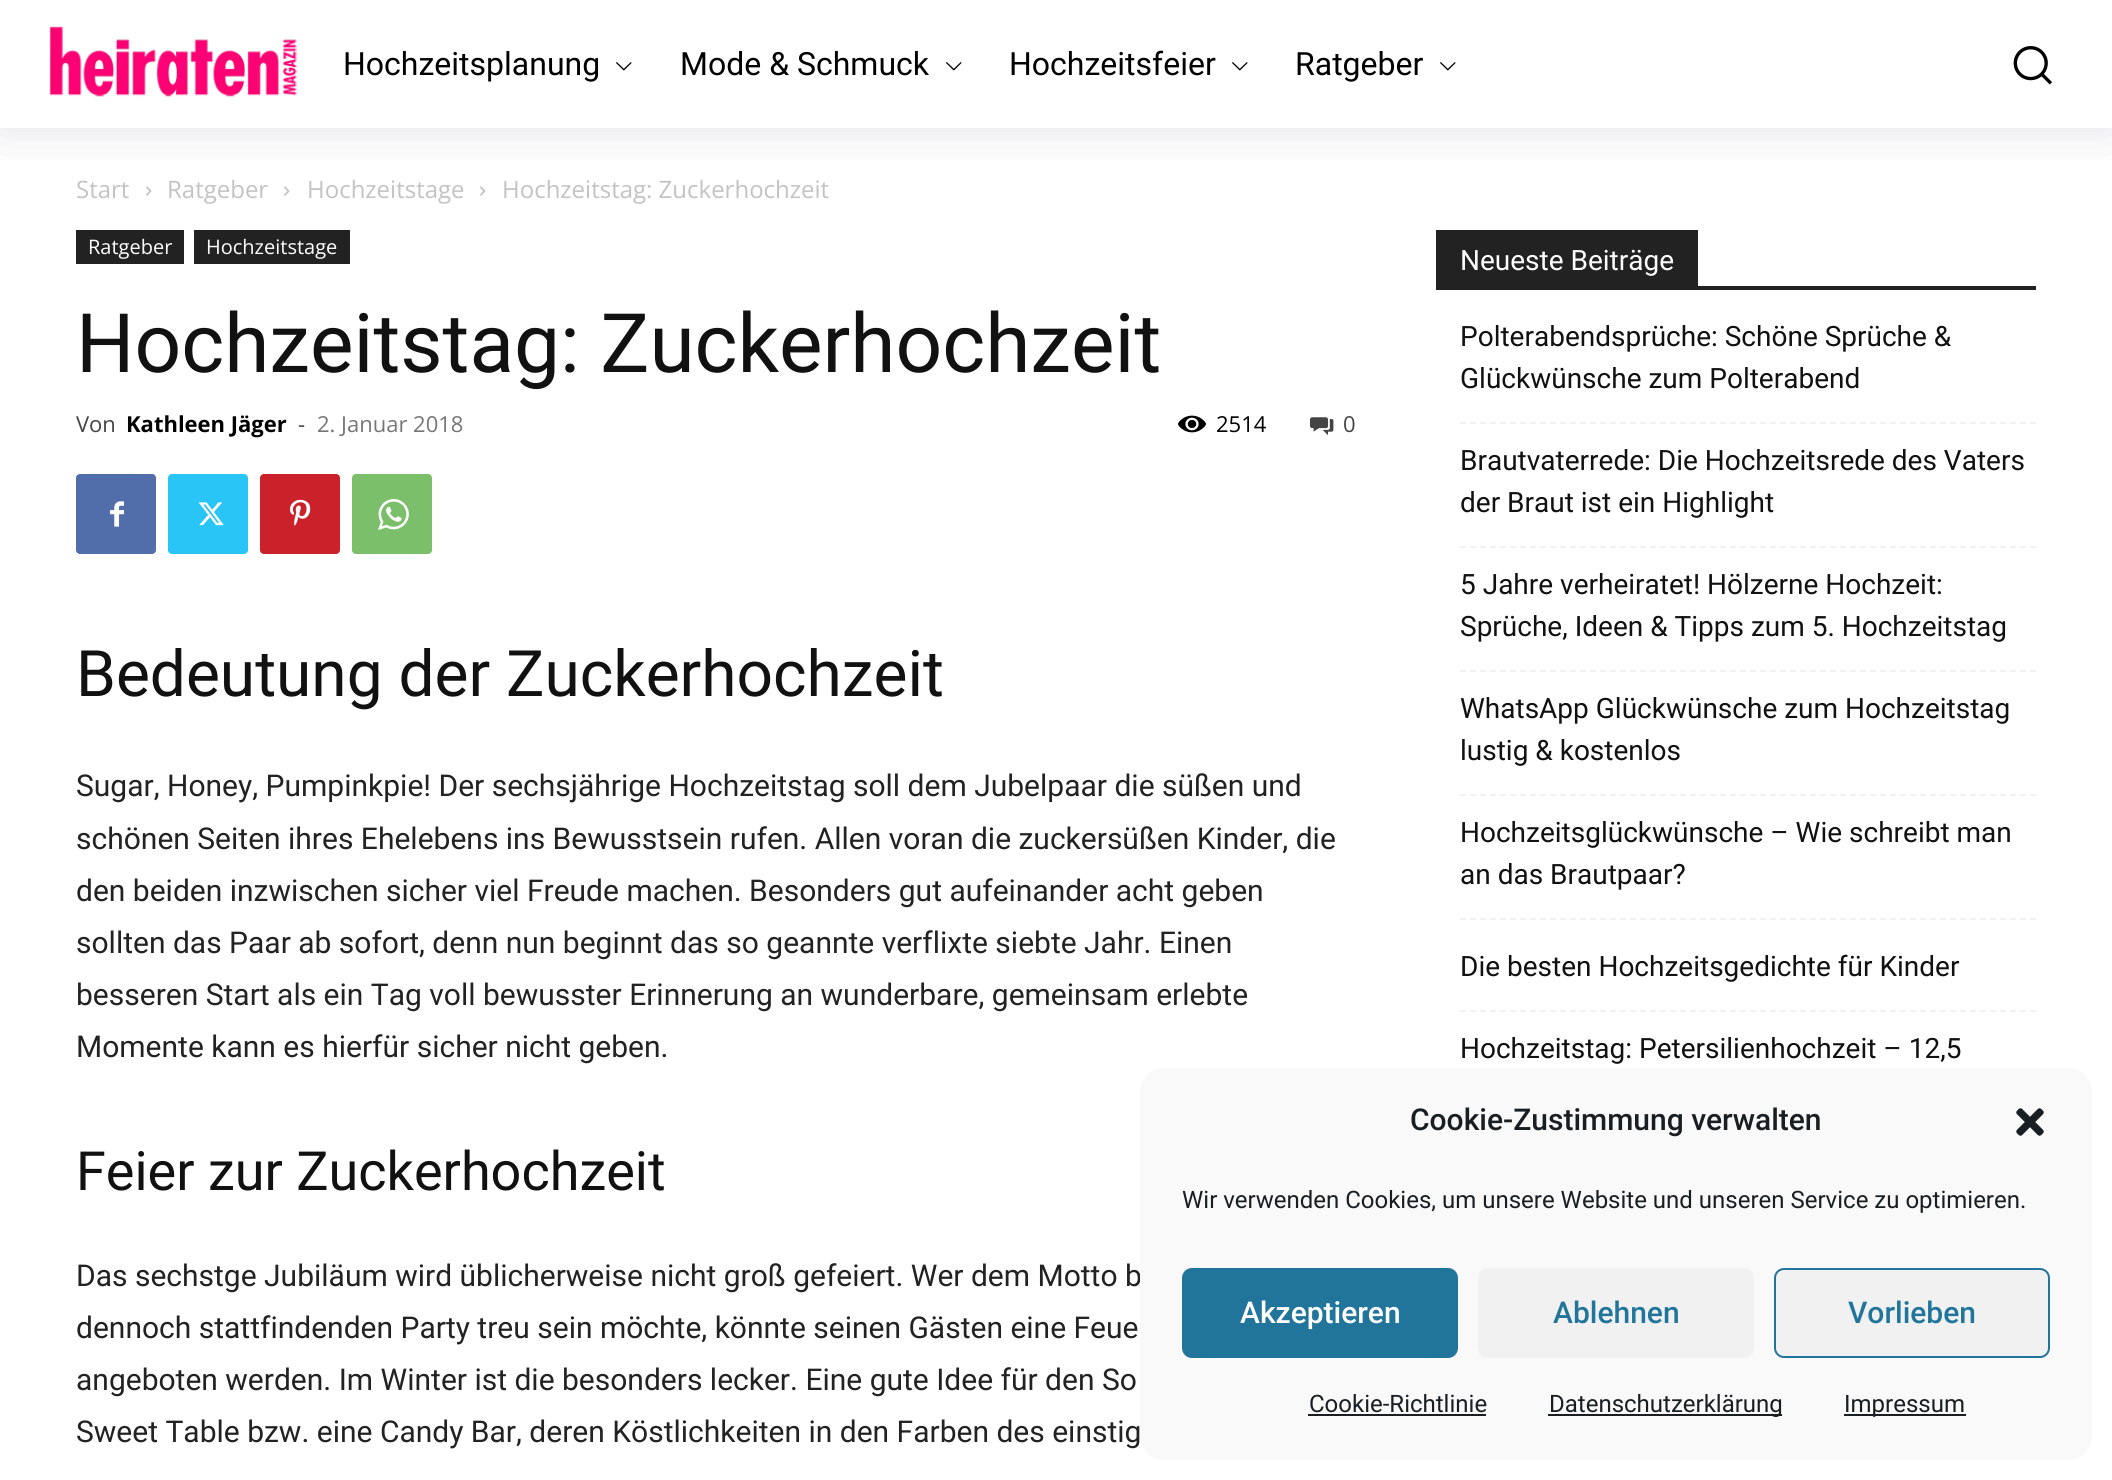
import math
import cairo

surface = cairo.ImageSurface(cairo.FORMAT_RGB24, 2112, 1480)
c = cairo.Context(surface)
options = cairo.FontOptions()
options.set_hint_metrics(cairo.HINT_METRICS_OFF)
options.set_hint_style(cairo.HINT_STYLE_NONE)
c.set_font_options(options)
c.set_miter_limit(4)
def C(code):
 c.set_source_rgb(*(v / 255 for v in bytes.fromhex(code[-6:])))
def F(family, size, italic, bold):
 c.select_font_face(family, cairo.FONT_SLANT_ITALIC if italic else cairo.FONT_SLANT_NORMAL, cairo.FONT_WEIGHT_BOLD if bold else cairo.FONT_WEIGHT_NORMAL)
 c.set_font_size(size)
def T(x, y, s):
 c.move_to(x, y)
 c.show_text(s)
def R(x, y, w, h):
 c.rectangle(x, y, w, h)
 c.fill()
def Q(x, y, w, h, r):
 c.new_sub_path()
 for i, (u, v) in enumerate([(x + w - r, y + h - r), (x + r, y + h - r), (x + r, y + r), (x + w - r, y + r)]):
  c.arc(u, v, r, i * math.pi / 2, (i + 1) * math.pi / 2)
 c.close_path()
def S(x, y, w, h, r, blur, alpha):
 c.push_group_with_content(cairo.CONTENT_ALPHA)
 c.set_operator(cairo.OPERATOR_SOURCE)
 for i in range(15, -16, -2):
  e = blur * i / 6
  if min(w, h) + 2 * e > 0:
   c.set_source_rgba(0, 0, 0, alpha * math.erfc((i - 1) / 8.5) / 2)
   Q(x - e, y - e, w + 2 * e, h + 2 * e, max(0, min(r + e + blur * .6, min(w, h) / 2 + e)))
   c.fill()
 c.mask(c.pop_group())
def I(path, x, y, w, h):
 c.save()
 c.set_source_surface(cairo.ImageSurface.create_from_png(path), x, y)
 c.rectangle(x, y, w, h)
 c.fill()
 c.restore()
C('ffffff')
c.paint()
I('1.png',49,26,249,71)
I('4.png',146,186,6,10)
I('4.png',284,186,6,10)
I('4.png',480,186,6,10)
c.save()
c.rectangle(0,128,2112,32)
c.clip()
C('5e6a87')
S(0,0,2112,128,0,25,.2)
c.restore()
F('Roboto',32,0,0)
C('000000')
T(343,75,'Hochzeitsplanung')
I('2.png',616,62,16,9)
T(680,75,'Mode & Schmuck')
I('2.png',946,62,16,9)
T(1009,75,'Hochzeitsfeier')
I('2.png',1232,62,16,9)
T(1295,75,'Ratgeber')
I('2.png',1440,62,16,9)
I('3.png',2013,46,39,39)
F('Open Sans',24,0,0)
C('c3c3c3')
T(76,198,'Start')
T(167,198,'Ratgeber')
T(307,198,'Hochzeitstage')
T(502,198,'Hochzeitstag: Zuckerhochzeit')
C('222222')
R(76,230,108,34)
F('Open Sans',20,0,0)
C('ffffff')
T(88,254,'Ratgeber')
C('222222')
R(194,230,156,34)
C('ffffff')
T(206,254,'Hochzeitstage')
F('Roboto',82,0,0)
C('111111')
T(76,372,'Hochzeitstag: Zuckerhochzeit')
F('Open Sans',22,0,0)
C('444444')
T(76,432,'Von')
F('Open Sans',22,0,1)
C('000000')
T(126,432,'Kathleen Jäger')
F('Open Sans',22,0,0)
C('444444')
T(298,432,'-')
C('767676')
T(317,432,'2. Januar 2018')
I('5.png',1178,415,28,18)
C('000000')
T(1216,432,'2514')
I('6.png',1310,417,24,19)
C('444444')
T(1343,432,'0')
C('516eab')
Q(76,474,80,80,4)
c.fill()
I('7.png',110,501,14,26)
C('29c5f6')
Q(168,474,80,80,4)
c.fill()
I('8.png',198,502,26,24)
C('ca212a')
Q(260,474,80,80,4)
c.fill()
I('9.png',290,499,21,27)
C('7bbf6a')
Q(352,474,80,80,4)
c.fill()
I('10.png',378,499,31,31)
F('Roboto',64,0,0)
C('111111')
T(76,696,'Bedeutung der Zuckerhochzeit')
F('Roboto',30,0,0)
C('222222')
T(76,796,'Sugar, Honey, Pumpinkpie! Der sechsjährige Hochzeitstag soll dem Jubelpaar die süßen und')
T(76,849,'schönen Seiten ihres Ehelebens ins Bewusstsein rufen. Allen voran die zuckersüßen Kinder, die')
T(76,901,'den beiden inzwischen sicher viel Freude machen. Besonders gut aufeinander acht geben')
T(76,953,'sollten das Paar ab sofort, denn nun beginnt das so geannte verflixte siebte Jahr. Einen')
T(76,1005,'besseren Start als ein Tag voll bewusster Erinnerung an wunderbare, gemeinsam erlebte')
T(76,1057,'Momente kann es hierfür sicher nicht geben.')
F('Roboto',54,0,0)
C('111111')
T(76,1190,'Feier zur Zuckerhochzeit')
F('Roboto',30,0,0)
C('222222')
T(76,1286,'Das sechstge Jubiläum wird üblicherweise nicht groß gefeiert. Wer dem Motto b')
T(76,1338,'dennoch stattfindenden Party treu sein möchte, könnte seinen Gästen eine Feue')
T(76,1390,'angeboten werden. Im Winter ist die besonders lecker. Eine gute Idee für den So')
T(76,1442,'Sweet Table bzw. eine Candy Bar, deren Köstlichkeiten in den Farben des einstig')
R(1436,286,600,4)
R(1436,230,262,56)
F('Roboto',28,0,0)
C('ffffff')
T(1460,270,'Neueste Beiträge')
c.new_path()
c.move_to(1460,423)
c.line_to(2036,423)
C('f1f1f1')
c.set_dash([6,4])
c.stroke()
C('111111')
T(1460,346,'Polterabendsprüche: Schöne Sprüche &')
T(1460,388,'Glückwünsche zum Polterabend')
c.new_path()
c.move_to(1460,547)
c.line_to(2036,547)
C('f1f1f1')
c.stroke()
C('111111')
T(1460,470,'Brautvaterrede: Die Hochzeitsrede des Vaters')
T(1460,512,'der Braut ist ein Highlight')
c.new_path()
c.move_to(1460,671)
c.line_to(2036,671)
C('f1f1f1')
c.stroke()
C('111111')
T(1460,594,'5 Jahre verheiratet! Hölzerne Hochzeit:')
T(1460,636,'Sprüche, Ideen & Tipps zum 5. Hochzeitstag')
c.new_path()
c.move_to(1460,795)
c.line_to(2036,795)
C('f1f1f1')
c.stroke()
C('111111')
T(1460,718,'WhatsApp Glückwünsche zum Hochzeitstag')
T(1460,760,'lustig & kostenlos')
c.new_path()
c.move_to(1460,919)
c.line_to(2036,919)
C('f1f1f1')
c.stroke()
C('111111')
T(1460,842,'Hochzeitsglückwünsche – Wie schreibt man')
T(1460,884,'an das Brautpaar?')
c.new_path()
c.move_to(1460,1011)
c.line_to(2036,1011)
C('f1f1f1')
c.stroke()
C('111111')
T(1460,976,'Die besten Hochzeitsgedichte für Kinder')
T(1460,1058,'Hochzeitstag: Petersilienhochzeit – 12,5')
C('f9f9f9')
Q(1140,1068,952,392,24)
c.fill()
F('Roboto Medium',30,0,0)
C('191e23')
T(1410,1130,'Cookie-Zustimmung verwalten')
I('11.png',2016,1108,28,28)
F('Roboto',24,0,0)
T(1182,1208,'Wir verwenden Cookies, um unsere Website und unseren Service zu optimieren.')
C('21759b')
Q(1183,1269,274,88,9)
c.fill_preserve()
c.set_dash([])
c.stroke()
F('Roboto Medium',30,0,0)
C('ffffff')
T(1240,1323,'Akzeptieren')
C('f1f1f1')
Q(1478,1268,276,90,10)
c.fill()
C('21759b')
T(1553,1323,'Ablehnen')
C('f1f1f1')
Q(1775,1269,274,88,9)
c.fill_preserve()
C('21759b')
c.stroke()
T(1848,1323,'Vorlieben')
F('Roboto',24,0,0)
C('191e23')
T(1309,1412,'Cookie-Richtlinie')
R(1308,1414,178,2)
R(1548,1414,234,2)
T(1549,1412,'Datenschutzerklärung')
R(1844,1414,122,2)
T(1844,1412,'Impressum')
surface.write_to_png('o.png')
